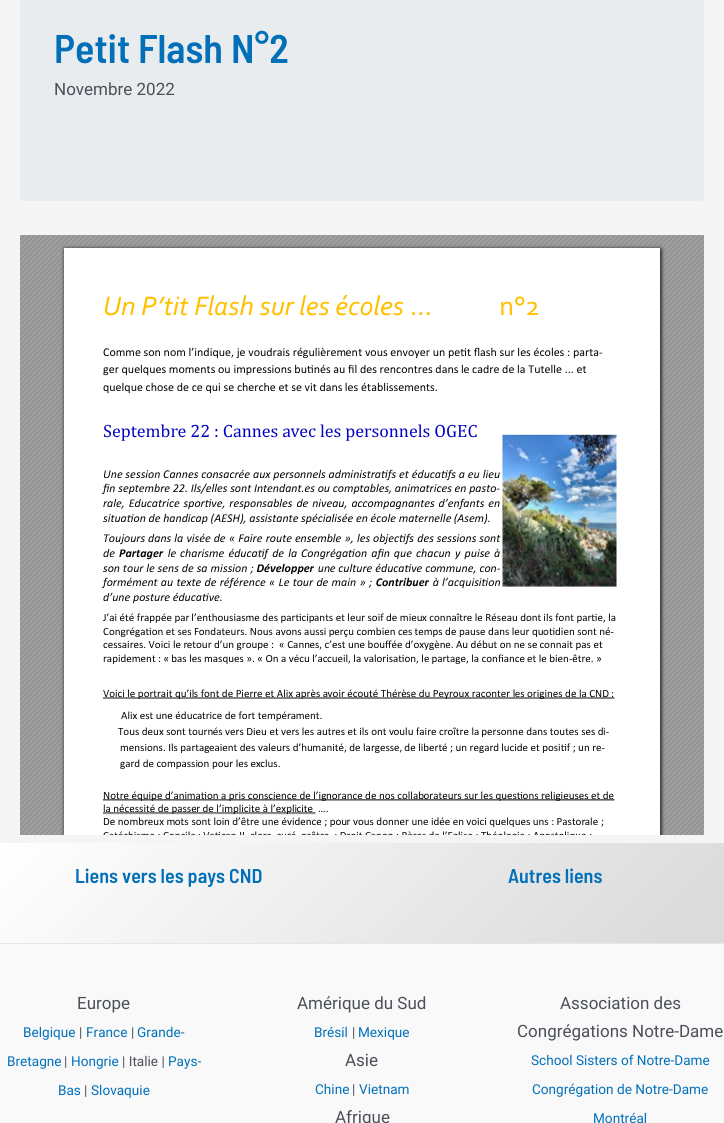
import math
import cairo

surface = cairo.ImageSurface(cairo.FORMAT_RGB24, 724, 1123)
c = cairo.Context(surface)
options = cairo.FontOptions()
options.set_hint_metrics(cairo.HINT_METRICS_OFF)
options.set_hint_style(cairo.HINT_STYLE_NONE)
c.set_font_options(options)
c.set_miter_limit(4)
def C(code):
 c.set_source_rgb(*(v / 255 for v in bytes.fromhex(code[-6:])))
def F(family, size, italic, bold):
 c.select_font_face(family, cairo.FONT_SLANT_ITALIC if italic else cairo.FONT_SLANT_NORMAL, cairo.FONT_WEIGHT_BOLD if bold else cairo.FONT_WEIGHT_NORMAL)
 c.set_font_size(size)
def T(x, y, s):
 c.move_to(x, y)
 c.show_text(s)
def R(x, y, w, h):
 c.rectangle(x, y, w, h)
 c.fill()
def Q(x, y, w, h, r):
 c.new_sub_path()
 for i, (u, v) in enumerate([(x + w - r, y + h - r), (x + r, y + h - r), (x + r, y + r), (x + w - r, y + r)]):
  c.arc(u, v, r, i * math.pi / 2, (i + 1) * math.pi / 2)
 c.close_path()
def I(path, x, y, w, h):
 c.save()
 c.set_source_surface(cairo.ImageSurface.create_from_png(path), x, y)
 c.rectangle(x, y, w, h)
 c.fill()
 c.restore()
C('f5f5f5')
c.paint()
C('e9ecef')
Q(20,-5,684,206,5)
c.fill()
F('Barlow Semi Condensed SemiBold',40,0,0)
C('0170b9')
T(54,63,'Petit Flash N°2')
F('Roboto',17,0,0)
C('4b4f58')
T(54,95,'Novembre 2022')
I('1.png',20,235,684,600)
gradient = cairo.LinearGradient(156,687,568,1099)
gradient.add_color_stop_rgba(0,1,1,1,1)
gradient.add_color_stop_rgba(.93,0.859,0.859,0.859,1)
c.set_source(gradient)
R(0,843,724,100)
F('Barlow Semi Condensed SemiBold',20,0,0)
C('0170b9')
T(75,883,'Liens vers les pays CND')
T(508,883,'Autres liens')
C('f9f9f9')
R(0,944,724,179)
C('e6e6e6')
R(0,943,724,1)
F('Roboto',17,0,0)
C('4b4f58')
T(77,1009,'Europe')
F('Roboto',13.6,0,0)
C('0170b9')
T(23,1037,'Belgique')
C('4b4f58')
T(79,1037,'|')
C('0170b9')
T(86,1037,'France')
C('4b4f58')
T(131,1037,'|')
C('0170b9')
T(137,1037,'Grande-')
T(7,1066,'Bretagne')
C('4b4f58')
T(64,1066,'|')
C('0170b9')
T(71,1066,'Hongrie')
C('4b4f58')
T(122,1066,'| Italie |')
C('0170b9')
T(168,1066,'Pays-')
T(58,1095,'Bas')
C('4b4f58')
T(84,1095,'|')
C('0170b9')
T(91,1095,'Slovaquie')
F('Roboto',17,0,0)
C('4b4f58')
T(297,1009,'Amérique du Sud')
F('Roboto',13.6,0,0)
C('0170b9')
T(314,1037,'Brésil')
C('4b4f58')
T(352,1037,'|')
C('0170b9')
T(358,1037,'Mexique')
F('Roboto',17,0,0)
C('4b4f58')
T(345,1066,'Asie')
F('Roboto',13.6,0,0)
C('0170b9')
T(315,1094,'Chine')
C('4b4f58')
T(352,1094,'|')
C('0170b9')
T(359,1094,'Vietnam')
F('Roboto',17,0,0)
C('4b4f58')
T(335,1123,'Afrique')
T(560,1009,'Association des')
T(517,1037,'Congrégations Notre-Dame')
F('Roboto',13.6,0,0)
C('0170b9')
T(531,1065,'School Sisters of Notre-Dame')
T(532,1094,'Congrégation de Notre-Dame')
T(593,1123,'Montréal')
surface.write_to_png('o.png')
